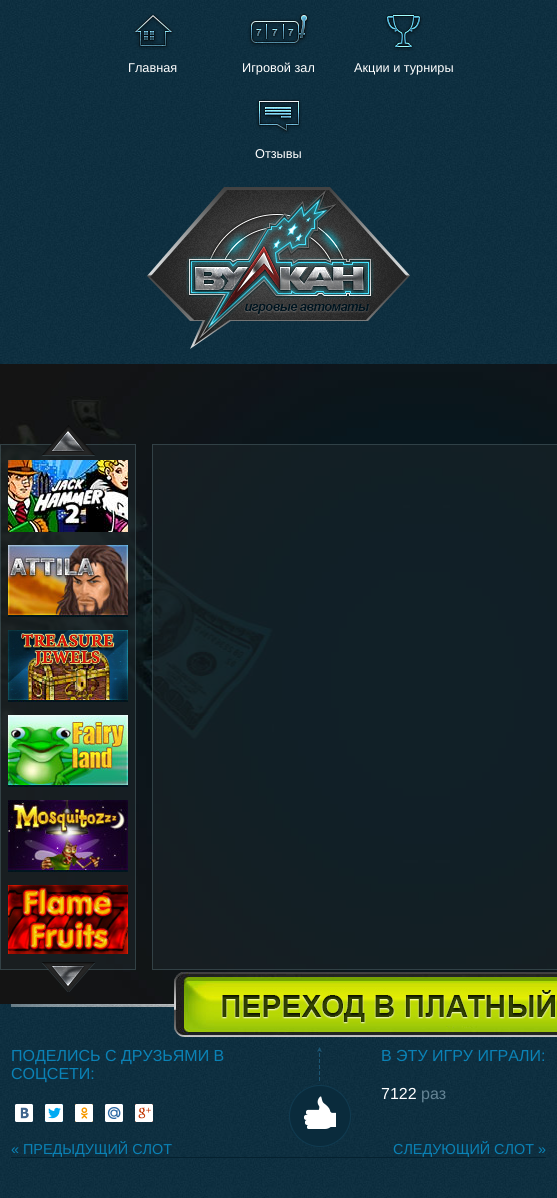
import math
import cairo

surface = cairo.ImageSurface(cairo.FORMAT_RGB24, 557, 1198)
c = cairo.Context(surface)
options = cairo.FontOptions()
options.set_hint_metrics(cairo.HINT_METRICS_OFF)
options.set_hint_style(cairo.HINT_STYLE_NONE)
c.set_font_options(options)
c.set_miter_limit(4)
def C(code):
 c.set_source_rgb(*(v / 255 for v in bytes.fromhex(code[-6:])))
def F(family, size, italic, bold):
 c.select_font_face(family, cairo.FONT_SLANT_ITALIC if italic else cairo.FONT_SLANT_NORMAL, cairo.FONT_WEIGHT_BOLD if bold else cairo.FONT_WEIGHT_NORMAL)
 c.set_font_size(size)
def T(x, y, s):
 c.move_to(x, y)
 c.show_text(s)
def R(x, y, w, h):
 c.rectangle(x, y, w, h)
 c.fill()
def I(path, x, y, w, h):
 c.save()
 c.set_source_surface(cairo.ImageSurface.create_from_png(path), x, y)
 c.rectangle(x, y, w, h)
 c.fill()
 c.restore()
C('ffffff')
c.paint()
I('1.png',0,0,557,1198)
I('2.png',134,14,39,36)
F('Liberation Sans',12.75,0,0)
C('ffffff')
T(128,72,'Главная')
I('3.png',248,13,62,34)
T(242,72,'Игровой зал')
I('4.png',384,13,39,38)
T(354,72,'Акции и турниры')
I('5.png',256,99,46,35)
T(255,158,'Отзывы')
I('6.png',147,187,263,162)
I('7.png',0,364,557,640)
c.set_source_rgba(0.122,0.157,0.176,0.5)
R(0,444,136,526)
c.rectangle(.5,444.5,135,525)
c.set_source_rgba(0.306,0.396,0.416,0.5)
c.set_line_width(1)
c.stroke()
I('8.png',42,425,53,31)
I('9.png',8,460,120,72)
I('10.png',8,545,120,72)
I('11.png',8,630,120,72)
I('12.png',8,715,120,72)
I('13.png',8,800,120,72)
I('14.png',8,885,120,69)
I('15.png',42,962,53,30)
c.set_source_rgba(0.122,0.157,0.176,0.5)
R(152,444,405,526)
c.rectangle(152.5,444.5,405,525)
c.set_source_rgba(0.306,0.396,0.416,0.5)
c.stroke()
I('16.png',174,972,383,65)
I('17.png',11,1004,163,3)
C('05212f')
R(11,1157,535,1)
F('Liberation Sans',16,0,0)
C('0a82b6')
T(11,1061,'ПОДЕЛИСЬ С ДРУЗЬЯМИ В')
T(11,1079,'СОЦСЕТИ:')
I('18.png',15,1104,18,18)
I('19.png',45,1104,18,18)
I('20.png',75,1104,18,18)
I('21.png',105,1104,18,18)
I('22.png',135,1104,18,18)
I('23.png',289,1047,62,100)
T(381,1061,'В ЭТУ ИГРУ ИГРАЛИ:')
C('ffffff')
T(381,1099,'7122')
C('638394')
T(421,1099,'раз')
F('Liberation Sans',14.4,0,0)
C('0a82b6')
T(11,1154,'« ПРЕДЫДУЩИЙ СЛОТ')
T(393,1154,'СЛЕДУЮЩИЙ СЛОТ »')
surface.write_to_png('o.png')
